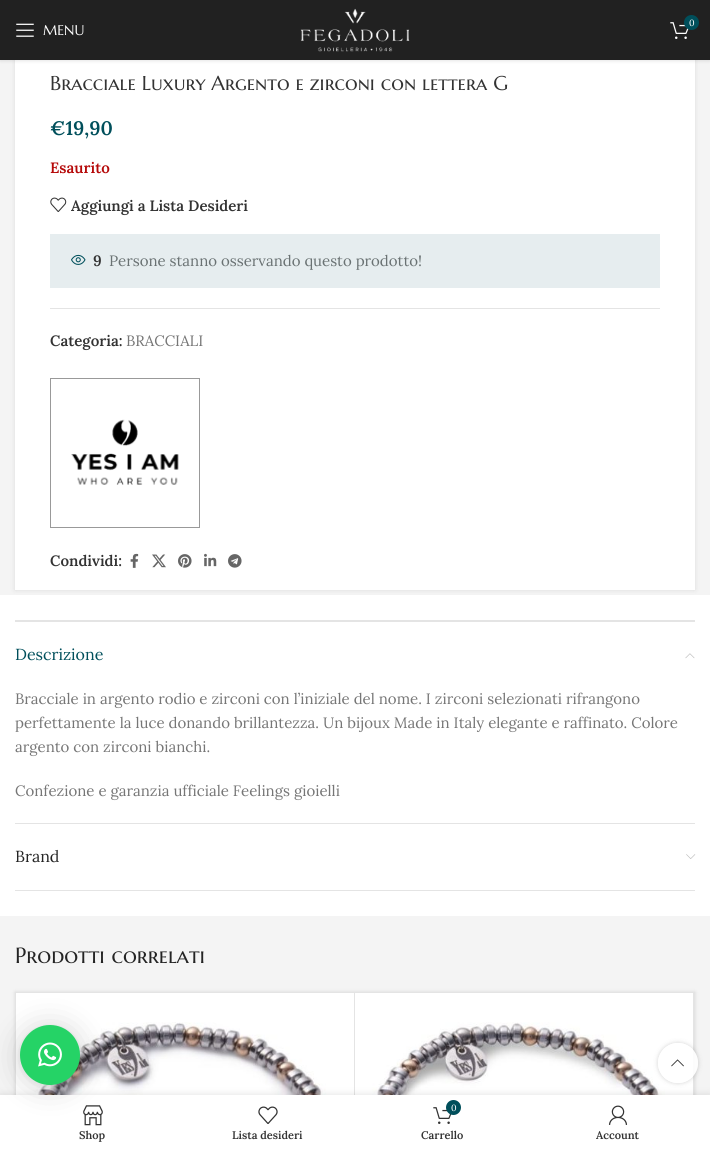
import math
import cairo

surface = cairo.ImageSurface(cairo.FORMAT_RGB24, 710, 1150)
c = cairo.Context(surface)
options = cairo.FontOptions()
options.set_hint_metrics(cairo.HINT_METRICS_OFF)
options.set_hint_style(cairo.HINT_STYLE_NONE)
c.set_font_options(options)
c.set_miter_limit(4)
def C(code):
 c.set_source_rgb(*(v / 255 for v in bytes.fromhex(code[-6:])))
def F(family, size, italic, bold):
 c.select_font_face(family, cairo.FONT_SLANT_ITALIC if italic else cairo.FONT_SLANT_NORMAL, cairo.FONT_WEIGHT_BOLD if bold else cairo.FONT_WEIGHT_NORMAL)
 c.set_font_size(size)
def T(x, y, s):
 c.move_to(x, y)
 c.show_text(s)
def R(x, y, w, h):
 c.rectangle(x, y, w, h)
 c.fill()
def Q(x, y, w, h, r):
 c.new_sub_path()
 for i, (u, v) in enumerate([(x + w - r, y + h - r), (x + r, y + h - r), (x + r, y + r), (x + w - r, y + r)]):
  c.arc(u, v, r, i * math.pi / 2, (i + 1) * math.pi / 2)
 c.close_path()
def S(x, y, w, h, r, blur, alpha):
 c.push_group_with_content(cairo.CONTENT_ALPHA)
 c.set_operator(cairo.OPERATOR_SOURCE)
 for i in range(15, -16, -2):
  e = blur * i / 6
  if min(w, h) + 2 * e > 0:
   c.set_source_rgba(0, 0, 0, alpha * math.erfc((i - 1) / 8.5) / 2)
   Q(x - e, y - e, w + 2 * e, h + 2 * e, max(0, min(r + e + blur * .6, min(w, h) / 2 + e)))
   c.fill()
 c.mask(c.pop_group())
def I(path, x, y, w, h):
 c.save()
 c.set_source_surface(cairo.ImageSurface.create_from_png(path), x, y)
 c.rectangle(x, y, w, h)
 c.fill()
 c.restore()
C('f4f4f4')
c.paint()
C('ffffff')
R(0,595,710,321)
C('000000')
S(15,-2,680,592,0,2.5,.1)
C('ffffff')
R(15,60,680,530)
C('000000')
S(0,1,710,60,0,1.5,.1)
C('212121')
R(0,0,710,60)
I('1.png',300,8,110,44)
I('2.png',670,22,19,17)
C('004f5b')
c.arc(691.5,22.5,7.5,0,2 * math.pi)
c.fill()
F('Lora',9,0,0)
C('ffffff')
T(689,26,'0')
I('3.png',16,23,18,14)
F('Marcellus SC',14,0,0)
T(43,35,'MENU')
C('e6edef')
R(50,234,610,54)
F('Marcellus SC',20,0,0)
C('333333')
T(50,90,'Bracciale Luxury Argento e zirconi con lettera G')
F('Lora SemiBold',19.5,0,0)
C('004f5b')
T(50,135,'€19,90')
F('Lora SemiBold',15,0,0)
C('b50808')
T(50,173,'Esaurito')
I('4.png',50,197,17,15)
C('333333')
T(71,211,'Aggiungi a Lista Desideri')
I('5.png',71,254,15,11)
T(93,266,'9')
F('Lora',15,0,0)
C('6a7273')
T(109,266,'Persone stanno osservando questo prodotto!')
C('e4e4e4')
R(50,308,610,1)
F('Lora SemiBold',15,0,0)
C('333333')
T(50,346,'Categoria:')
F('Lora',15,0,0)
C('767676')
T(126,346,'BRACCIALI')
c.rectangle(50.5,378.5,149,149)
C('999999')
c.set_line_width(1)
c.stroke()
I('6.png',71,419,108,66)
F('Lora SemiBold',15,0,0)
C('333333')
T(50,566,'Condividi:')
I('7.png',130,553,9,15)
I('8.png',152,554,14,14)
I('9.png',178,554,14,14)
I('10.png',204,553,13,14)
I('11.png',228,554,14,14)
C('e4e4e4')
R(15,620,680,2)
R(15,823,680,1)
F('Lora',16,0,0)
C('004f5b')
T(15,660,'Descrizione')
I('12.png',685,653,10,6)
F('Lora',15,0,0)
C('767676')
T(15,704,'Bracciale in argento rodio e zirconi con l’iniziale del nome. I zirconi selezionati rifrangono')
T(15,728,'perfettamente la luce donando brillantezza. Un bijoux Made in Italy elegante e raffinato. Colore')
T(15,752,'argento con zirconi bianchi.')
T(15,796,'Confezione e garanzia ufficiale Feelings gioielli')
C('e4e4e4')
R(15,890,680,1)
F('Lora',16,0,0)
C('242424')
T(15,862,'Brand')
I('13.png',686,854,10,5)
F('Marcellus SC',22,0,0)
T(15,963,'Prodotti correlati')
C('000000')
S(15,992,680,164,0,2,.12)
C('ffffff')
R(16,993,677,102)
c.rectangle(15.5,992.5,679,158)
C('e4e4e4')
c.stroke()
R(354,993,1,102)
I('14.png',22,1022,327,73)
R(693,993,1,102)
I('15.png',366,1022,318,73)
c.save()
c.set_fill_rule(cairo.FILL_RULE_EVEN_ODD)
c.new_path()
c.move_to(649,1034)
c.line_to(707,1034)
c.line_to(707,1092)
c.line_to(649,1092)
c.close_path()
c.move_to(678,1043)
c.curve_to(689,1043,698,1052,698,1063)
c.curve_to(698,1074,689,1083,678,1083)
c.curve_to(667,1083,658,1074,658,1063)
c.curve_to(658,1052,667,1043,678,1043)
c.close_path()
c.clip()
C('000000')
S(658,1043,40,40,20,2.5,.17)
c.restore()
c.set_source_rgba(1,1,1,0.9)
c.arc(678,1063,20,0,2 * math.pi)
c.fill()
C('000000')
S(0,1095,710,55,0,4.5,.12)
C('ffffff')
R(0,1095,710,55)
I('18.png',83,1105,20,21)
C('000000')
S(20,1027,60,60,30,16,.16)
S(20,1026,60,60,30,3,.06)
C('25d366')
c.arc(50,1055,30,0,2 * math.pi)
c.fill()
I('16.png',38,1042,24,25)
I('17.png',671,1059,13,8)
F('Lora SemiBold',11,0,0)
C('333333')
T(79,1139,'Shop')
I('19.png',258,1106,20,18)
T(232,1139,'Lista desideri')
I('20.png',433,1107,19,17)
C('004f5b')
c.arc(453.5,1107.5,7.5,0,2 * math.pi)
c.fill()
F('Lora',9,0,0)
C('ffffff')
T(451,1111,'0')
F('Lora SemiBold',11,0,0)
C('333333')
T(421,1139,'Carrello')
I('21.png',608,1105,20,20)
T(596,1139,'Account')
surface.write_to_png('o.png')
